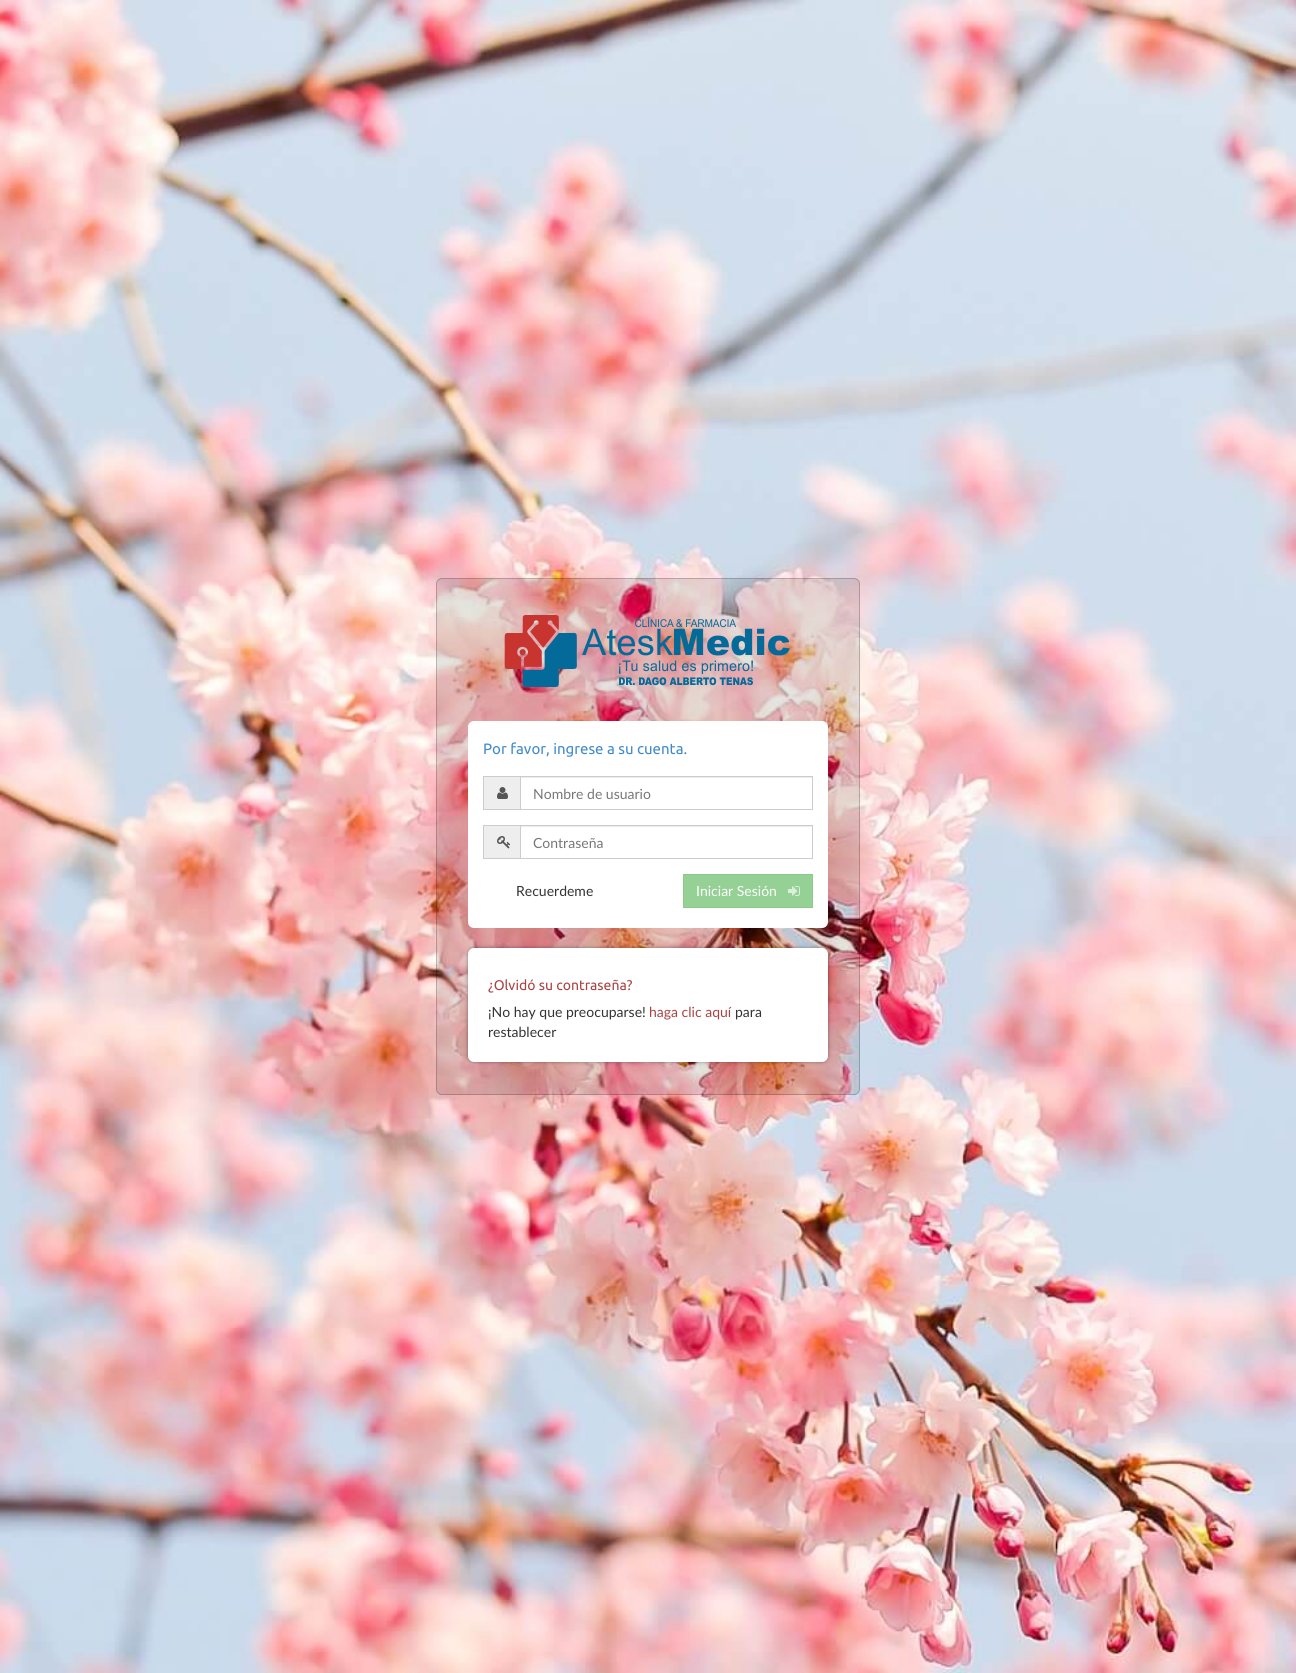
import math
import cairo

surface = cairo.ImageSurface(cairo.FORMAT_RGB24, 1296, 1673)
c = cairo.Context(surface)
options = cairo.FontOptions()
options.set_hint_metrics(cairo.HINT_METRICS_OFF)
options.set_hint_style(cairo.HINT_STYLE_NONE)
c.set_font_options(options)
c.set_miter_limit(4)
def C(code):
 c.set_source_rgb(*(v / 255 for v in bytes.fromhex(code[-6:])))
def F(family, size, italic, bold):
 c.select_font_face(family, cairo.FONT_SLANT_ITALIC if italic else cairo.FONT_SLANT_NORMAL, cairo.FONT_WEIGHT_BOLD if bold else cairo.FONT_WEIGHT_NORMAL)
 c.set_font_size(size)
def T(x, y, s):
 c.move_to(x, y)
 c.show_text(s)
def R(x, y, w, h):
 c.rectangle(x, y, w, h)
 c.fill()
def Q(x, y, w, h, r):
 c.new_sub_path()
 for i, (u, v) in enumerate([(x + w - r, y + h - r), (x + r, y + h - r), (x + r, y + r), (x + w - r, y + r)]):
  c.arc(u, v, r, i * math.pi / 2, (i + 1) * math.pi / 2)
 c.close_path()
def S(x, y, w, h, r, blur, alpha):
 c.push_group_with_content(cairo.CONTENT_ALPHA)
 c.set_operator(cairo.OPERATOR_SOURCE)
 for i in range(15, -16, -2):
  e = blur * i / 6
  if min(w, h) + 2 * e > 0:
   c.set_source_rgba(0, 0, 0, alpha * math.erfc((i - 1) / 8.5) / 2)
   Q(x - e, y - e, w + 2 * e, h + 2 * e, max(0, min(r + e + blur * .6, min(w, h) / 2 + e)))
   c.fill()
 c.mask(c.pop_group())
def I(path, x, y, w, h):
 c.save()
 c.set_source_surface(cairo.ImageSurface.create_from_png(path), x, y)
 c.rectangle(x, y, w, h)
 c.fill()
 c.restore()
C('ffffff')
c.paint()
I('1.png',0,0,1296,1673)
c.set_source_rgba(0,0,0,0.1)
Q(436,578,424,517,6)
c.fill()
Q(436.5,578.5,423,516,5.5)
c.set_source_rgba(0,0,0,0.2)
c.set_line_width(1)
c.stroke()
I('2.png',504,614,286,74)
C('ffffff')
Q(468,721,360,207,6)
c.fill()
F('Ubuntu',15,0,0)
C('428bca')
T(483,754,'Por favor, ingrese a su cuenta.')
C('eeeeee')
R(484,777,36,32)
C('cccccc')
R(483,776,37,1)
R(483,809,37,1)
R(483,776,1,34)
I('3.png',497,787,11,12)
C('ececec')
R(521,777,291,1)
c.rectangle(520.5,776.5,292,33)
C('cccccc')
c.stroke()
F('Lato',14,0,0)
C('777777')
T(533,799,'Nombre de usuario')
C('eeeeee')
R(484,826,36,32)
C('cccccc')
R(483,825,37,1)
R(483,858,37,1)
R(483,825,1,34)
I('4.png',497,836,14,13)
C('ececec')
R(521,826,291,1)
c.rectangle(520.5,825.5,292,33)
C('cccccc')
c.stroke()
C('777777')
T(533,848,'Contraseña')
C('333333')
T(516,896,'Recuerdeme')
C('95d195')
c.rectangle(683.5,874.5,129,33)
c.fill_preserve()
C('8bca8b')
c.stroke()
C('ffffff')
T(696,896,'Iniciar Sesión')
I('5.png',788,886,12,10)
C('000000')
S(468,948,360,114,6,2,.4)
C('ffffff')
Q(468,948,360,114,6)
c.fill()
F('Ubuntu',14,0,0)
C('a94442')
T(488,990,'¿Olvidó su contraseña?')
F('Lato',14,0,0)
C('333333')
T(488,1017,'¡No hay que preocuparse!')
C('a94442')
T(649,1017,'haga clic aquí')
C('333333')
T(735,1017,'para')
T(488,1037,'restablecer')
surface.write_to_png('o.png')
